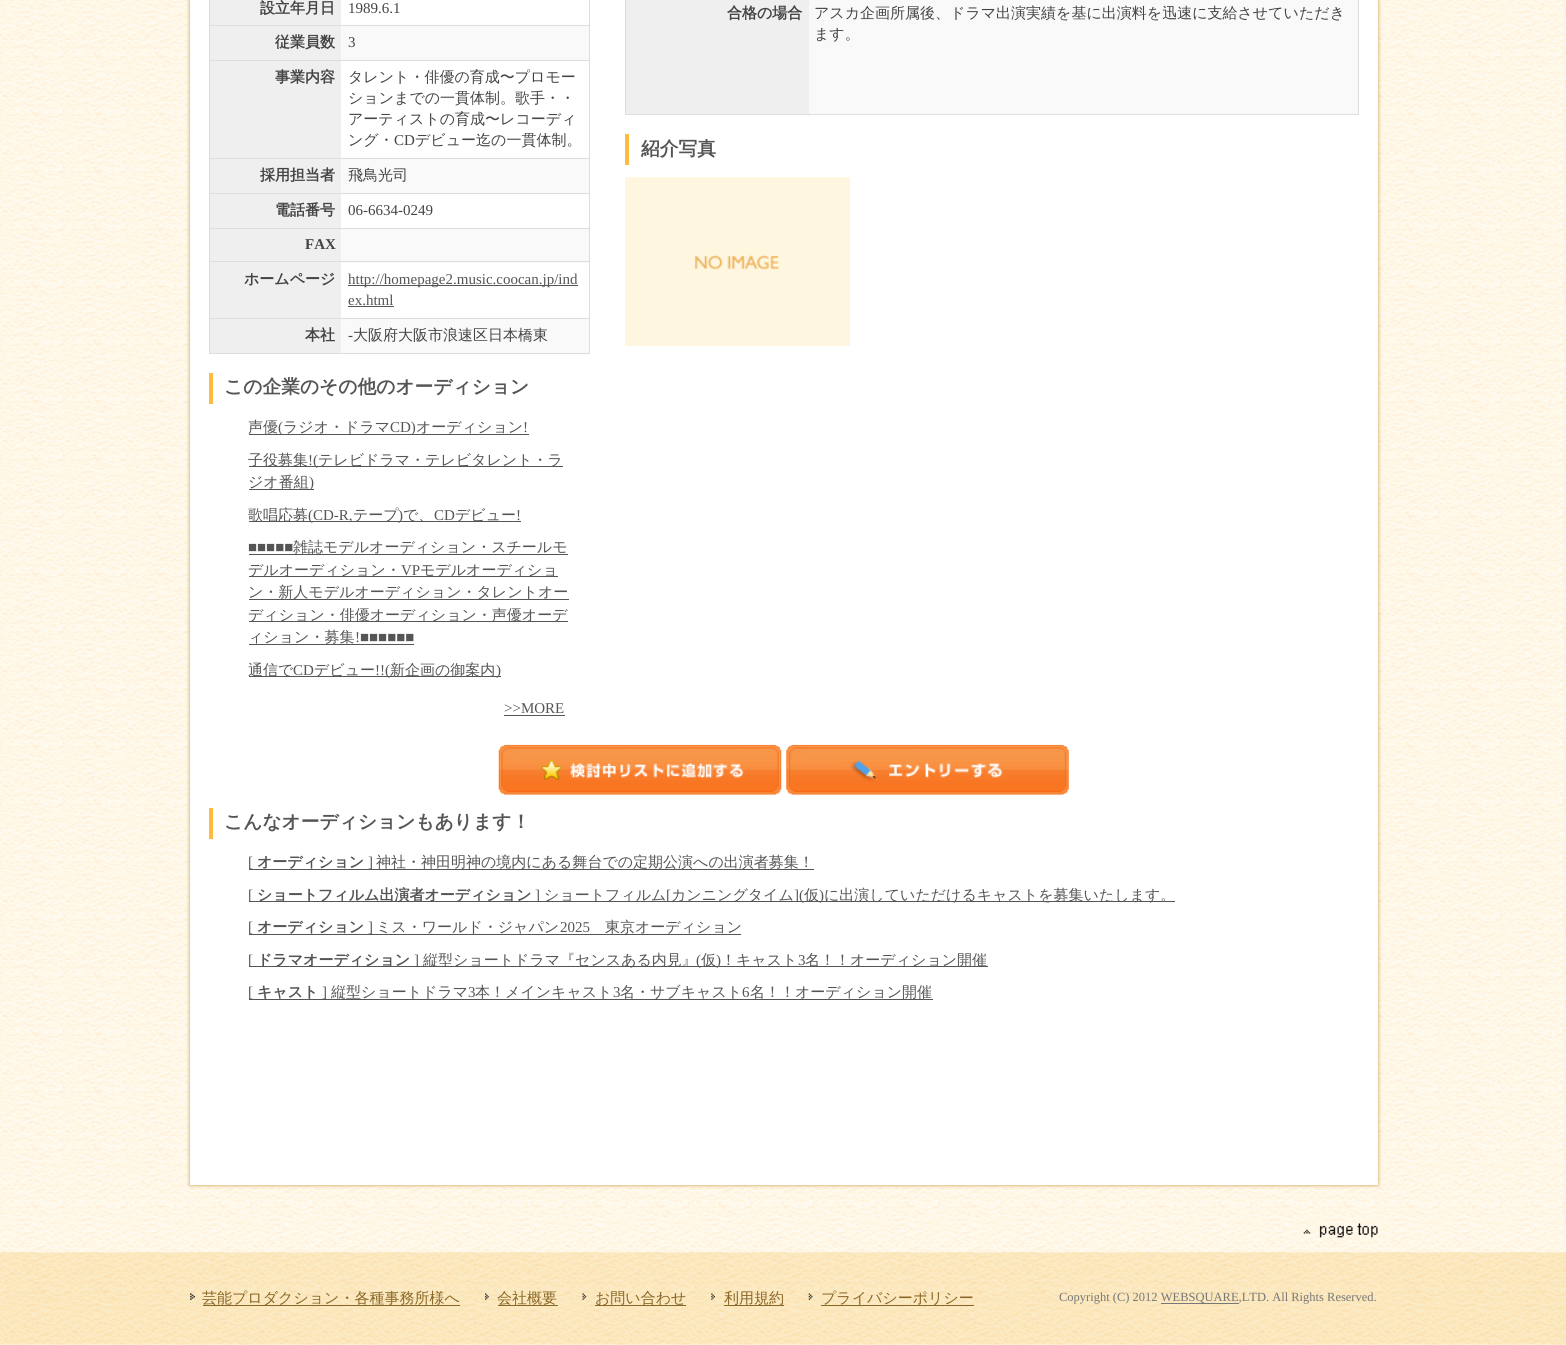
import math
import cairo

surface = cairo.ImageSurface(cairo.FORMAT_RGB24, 1566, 1345)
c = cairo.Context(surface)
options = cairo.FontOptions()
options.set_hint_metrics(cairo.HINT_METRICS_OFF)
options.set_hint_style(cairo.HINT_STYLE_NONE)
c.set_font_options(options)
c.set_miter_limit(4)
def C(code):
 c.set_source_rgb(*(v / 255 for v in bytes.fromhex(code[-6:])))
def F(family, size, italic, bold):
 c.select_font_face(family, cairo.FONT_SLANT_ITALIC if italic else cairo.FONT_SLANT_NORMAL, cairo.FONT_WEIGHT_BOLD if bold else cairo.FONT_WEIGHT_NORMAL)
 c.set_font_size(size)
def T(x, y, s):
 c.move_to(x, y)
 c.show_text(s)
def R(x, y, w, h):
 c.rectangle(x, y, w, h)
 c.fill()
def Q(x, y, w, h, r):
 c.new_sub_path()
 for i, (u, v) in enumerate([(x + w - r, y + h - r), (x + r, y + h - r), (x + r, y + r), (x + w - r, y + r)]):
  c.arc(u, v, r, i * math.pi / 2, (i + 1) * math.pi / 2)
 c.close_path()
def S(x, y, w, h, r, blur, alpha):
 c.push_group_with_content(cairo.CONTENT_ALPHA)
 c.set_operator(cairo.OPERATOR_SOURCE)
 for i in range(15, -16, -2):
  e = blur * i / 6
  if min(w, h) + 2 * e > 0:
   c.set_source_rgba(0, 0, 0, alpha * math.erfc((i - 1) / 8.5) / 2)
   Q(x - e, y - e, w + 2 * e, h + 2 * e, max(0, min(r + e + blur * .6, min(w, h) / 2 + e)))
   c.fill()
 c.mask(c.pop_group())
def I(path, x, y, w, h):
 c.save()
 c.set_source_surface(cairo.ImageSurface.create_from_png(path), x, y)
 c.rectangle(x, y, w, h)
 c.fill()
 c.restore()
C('ffffff')
c.paint()
I('1.png',0,0,1566,1253)
C('c69740')
S(190,-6,1188,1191,0,2,1)
C('ffffff')
R(190,0,1188,1185)
C('dddddd')
R(589,0,1,354)
R(209,353,381,1)
R(209,0,1,354)
C('efefef')
R(210,0,131,25)
F('WenQuanYi Zen Hei',15,0,1)
C('444444')
T(260,13,'設立年月日')
C('dddddd')
R(209,25,381,1)
F('Liberation Serif',15,0,0)
C('444444')
T(348,13,'1989.6.1')
C('f9f9f9')
R(341,26,248,34)
C('efefef')
R(210,26,131,34)
F('WenQuanYi Zen Hei',15,0,1)
C('444444')
T(275,47,'従業員数')
C('dddddd')
R(209,60,381,1)
F('Liberation Serif',15,0,0)
C('444444')
T(348,47,'3')
C('efefef')
R(210,61,131,97)
F('WenQuanYi Zen Hei',15,0,1)
C('444444')
T(275,82,'事業内容')
C('dddddd')
R(209,158,381,1)
F('WenQuanYi Zen Hei Medium',15,0,0)
C('444444')
T(348,82,'タレント・俳優の育成〜プロモー')
T(348,103,'ションまでの一貫体制。歌手・・')
T(348,124,'アーティストの育成〜レコーディ')
T(348,145,'ング・')
F('Liberation Serif',15,0,0)
T(394,145,'CD')
F('WenQuanYi Zen Hei Medium',15,0,0)
T(415,145,'デビュー迄の一貫体制。')
C('f9f9f9')
R(341,159,248,34)
C('efefef')
R(210,159,131,34)
F('WenQuanYi Zen Hei',15,0,1)
C('444444')
T(260,180,'採用担当者')
C('dddddd')
R(209,193,381,1)
F('WenQuanYi Zen Hei Medium',15,0,0)
C('444444')
T(348,180,'飛鳥光司')
C('efefef')
R(210,194,131,34)
F('WenQuanYi Zen Hei',15,0,1)
C('444444')
T(275,215,'電話番号')
C('dddddd')
R(209,228,381,1)
F('Liberation Serif',15,0,0)
C('444444')
T(348,215,'06-6634-0249')
C('f9f9f9')
R(341,229,248,34)
C('efefef')
R(210,229,131,89)
F('Liberation Serif',15,0,1)
C('444444')
T(305,249,'FAX')
C('dddddd')
R(209,261,381,1)
F('WenQuanYi Zen Hei',15,0,1)
C('444444')
T(244,284,'ホームページ')
C('dddddd')
R(209,318,381,1)
C('555555')
R(348,285,230,1)
F('Liberation Serif',15,0,0)
T(348,284,'http://homepage2.music.coocan.jp/ind')
T(348,305,'ex.html')
R(348,306,46,1)
C('f9f9f9')
R(341,319,248,34)
C('efefef')
R(210,319,131,34)
F('WenQuanYi Zen Hei',15,0,1)
C('444444')
T(305,340,'本社')
F('Liberation Serif',15,0,0)
T(348,340,'-')
F('WenQuanYi Zen Hei Medium',15,0,0)
T(353,340,'大阪府大阪市浪速区日本橋東')
C('ffbb40')
R(209,373,4,31)
F('WenQuanYi Zen Hei',18.75,0,1)
C('555555')
T(224,393,'この企業のその他のオーディション')
F('WenQuanYi Zen Hei Medium',15,0,0)
T(248,432,'声優')
R(249,434,280,1)
F('Liberation Serif',15,0,0)
T(278,432,'(')
F('WenQuanYi Zen Hei Medium',15,0,0)
T(283,432,'ラジオ・ドラマ')
F('Liberation Serif',15,0,0)
T(390,432,'CD)')
F('WenQuanYi Zen Hei Medium',15,0,0)
T(416,432,'オーディション')
F('Liberation Serif',15,0,0)
T(523,432,'!')
R(249,466,314,1)
F('WenQuanYi Zen Hei Medium',15,0,0)
T(248,465,'子役募集')
F('Liberation Serif',15,0,0)
T(308,465,'!(')
F('WenQuanYi Zen Hei Medium',15,0,0)
T(318,465,'テレビドラマ・テレビタレント・ラ')
T(248,487,'ジオ番組')
R(249,489,65,1)
F('Liberation Serif',15,0,0)
T(309,487,')')
R(249,521,272,1)
F('WenQuanYi Zen Hei Medium',15,0,0)
T(248,520,'歌唱応募')
F('Liberation Serif',15,0,0)
T(308,520,'(CD-R,')
F('WenQuanYi Zen Hei Medium',15,0,0)
T(353,520,'テープ')
F('Liberation Serif',15,0,0)
T(398,520,')')
F('WenQuanYi Zen Hei Medium',15,0,0)
T(403,520,'で、')
F('Liberation Serif',15,0,0)
T(434,520,'CD')
F('WenQuanYi Zen Hei Medium',15,0,0)
T(455,520,'デビュー')
F('Liberation Serif',15,0,0)
T(516,520,'!')
T(248,552,'■■■■■')
R(249,554,319,1)
F('WenQuanYi Zen Hei Medium',15,0,0)
T(293,552,'雑誌モデルオーディション・スチールモ')
R(249,576,309,1)
T(248,575,'デルオーディション・')
F('Liberation Serif',15,0,0)
T(401,575,'VP')
F('WenQuanYi Zen Hei Medium',15,0,0)
T(420,575,'モデルオーディショ')
R(249,599,320,1)
T(248,597,'ン・新人モデルオーディション・タレントオー')
R(249,621,319,1)
T(248,620,'ディション・俳優オーディション・声優オーデ')
T(248,642,'ィション・募集')
F('Liberation Serif',15,0,0)
T(355,642,'!■■■■■■')
R(249,644,165,1)
R(249,676,252,1)
F('WenQuanYi Zen Hei Medium',15,0,0)
T(248,675,'通信で')
F('Liberation Serif',15,0,0)
T(293,675,'CD')
F('WenQuanYi Zen Hei Medium',15,0,0)
T(314,675,'デビュー')
F('Liberation Serif',15,0,0)
T(375,675,'!!(')
F('WenQuanYi Zen Hei Medium',15,0,0)
T(390,675,'新企画の御案内')
F('Liberation Serif',15,0,0)
T(496,675,')')
T(504,713,'>>MORE')
R(504,715,61,1)
C('dddddd')
R(1358,0,1,115)
R(625,114,734,1)
R(625,0,1,115)
C('f9f9f9')
R(809,0,549,114)
C('efefef')
R(626,0,183,114)
F('WenQuanYi Zen Hei',15,0,1)
C('444444')
T(727,18,'合格の場合')
F('WenQuanYi Zen Hei Medium',15,0,0)
T(814,18,'アスカ企画所属後、ドラマ出演実績を基に出演料を迅速に支給させていただき')
T(814,39,'ます。')
C('ffbb40')
R(625,134,4,31)
F('WenQuanYi Zen Hei',18.75,0,1)
C('555555')
T(641,155,'紹介写真')
I('2.png',625,177,225,169)
I('3.png',498,744,284,51)
I('4.png',786,744,283,51)
C('ffbb40')
R(209,808,4,31)
C('555555')
T(224,828,'こんなオーディションもあります！')
F('Liberation Serif',15,0,0)
T(248,867,'[')
R(249,869,565,1)
F('WenQuanYi Zen Hei',15,0,1)
T(257,867,'オーディション')
F('Liberation Serif',15,0,0)
T(368,867,']')
F('WenQuanYi Zen Hei Medium',15,0,0)
T(376,867,'神社・神田明神の境内にある舞台での定期公演への出演者募集！')
R(249,901,926,1)
F('Liberation Serif',15,0,0)
T(248,900,'[')
F('WenQuanYi Zen Hei',15,0,1)
T(257,900,'ショートフィルム出演者オーディション')
F('Liberation Serif',15,0,0)
T(535,900,']')
F('WenQuanYi Zen Hei Medium',15,0,0)
T(544,900,'ショートフィルム')
F('Liberation Serif',15,0,0)
T(666,900,'[')
F('WenQuanYi Zen Hei Medium',15,0,0)
T(671,900,'カンニングタイム')
F('Liberation Serif',15,0,0)
T(794,900,'](')
F('WenQuanYi Zen Hei Medium',15,0,0)
T(804,900,'仮')
F('Liberation Serif',15,0,0)
T(819,900,')')
F('WenQuanYi Zen Hei Medium',15,0,0)
T(824,900,'に出演していただけるキャストを募集いたします。')
F('Liberation Serif',15,0,0)
T(248,932,'[')
R(249,934,492,1)
F('WenQuanYi Zen Hei',15,0,1)
T(257,932,'オーディション')
F('Liberation Serif',15,0,0)
T(368,932,']')
F('WenQuanYi Zen Hei Medium',15,0,0)
T(376,932,'ミス・ワールド・ジャパン')
F('Liberation Serif',15,0,0)
T(560,932,'2025')
F('WenQuanYi Zen Hei Medium',15,0,0)
T(605,932,'東京オーディション')
R(249,966,739,1)
F('Liberation Serif',15,0,0)
T(248,965,'[')
F('WenQuanYi Zen Hei',15,0,1)
T(257,965,'ドラマオーディション')
F('Liberation Serif',15,0,0)
T(414,965,']')
F('WenQuanYi Zen Hei Medium',15,0,0)
T(423,965,'縦型ショートドラマ『センスある内見』')
F('Liberation Serif',15,0,0)
T(696,965,'(')
F('WenQuanYi Zen Hei Medium',15,0,0)
T(701,965,'仮')
F('Liberation Serif',15,0,0)
T(716,965,')')
F('WenQuanYi Zen Hei Medium',15,0,0)
T(721,965,'！キャスト')
F('Liberation Serif',15,0,0)
T(798,965,'3')
F('WenQuanYi Zen Hei Medium',15,0,0)
T(805,965,'名！！オーディション開催')
F('Liberation Serif',15,0,0)
T(248,997,'[')
R(249,999,684,1)
F('WenQuanYi Zen Hei',15,0,1)
T(257,997,'キャスト')
F('Liberation Serif',15,0,0)
T(322,997,']')
F('WenQuanYi Zen Hei Medium',15,0,0)
T(331,997,'縦型ショートドラマ')
F('Liberation Serif',15,0,0)
T(468,997,'3')
F('WenQuanYi Zen Hei Medium',15,0,0)
T(475,997,'本！メインキャスト')
F('Liberation Serif',15,0,0)
T(613,997,'3')
F('WenQuanYi Zen Hei Medium',15,0,0)
T(620,997,'名・サブキャスト')
F('Liberation Serif',15,0,0)
T(742,997,'6')
F('WenQuanYi Zen Hei Medium',15,0,0)
T(750,997,'名！！オーディション開催')
I('5.png',1303,1223,75,15)
I('6.png',0,1252,1566,93)
I('7.png',190,1293,5,7)
C('896727')
R(203,1305,257,1)
T(202,1303,'芸能プロダクション・各種事務所様へ')
I('8.png',485,1293,4,7)
R(498,1305,60,1)
T(497,1303,'会社概要')
I('9.png',582,1293,5,7)
R(595,1305,91,1)
T(595,1303,'お問い合わせ')
I('10.png',711,1293,4,7)
R(724,1305,60,1)
T(724,1303,'利用規約')
I('11.png',808,1293,5,7)
R(821,1305,153,1)
T(821,1303,'プライバシーポリシー')
F('Liberation Serif',12.5,0,0)
C('777777')
T(1059,1301,'Copyright (C) 2012 WEBSQUARE,LTD. All Rights Reserved.')
R(1161,1303,78,1)
surface.write_to_png('o.png')
